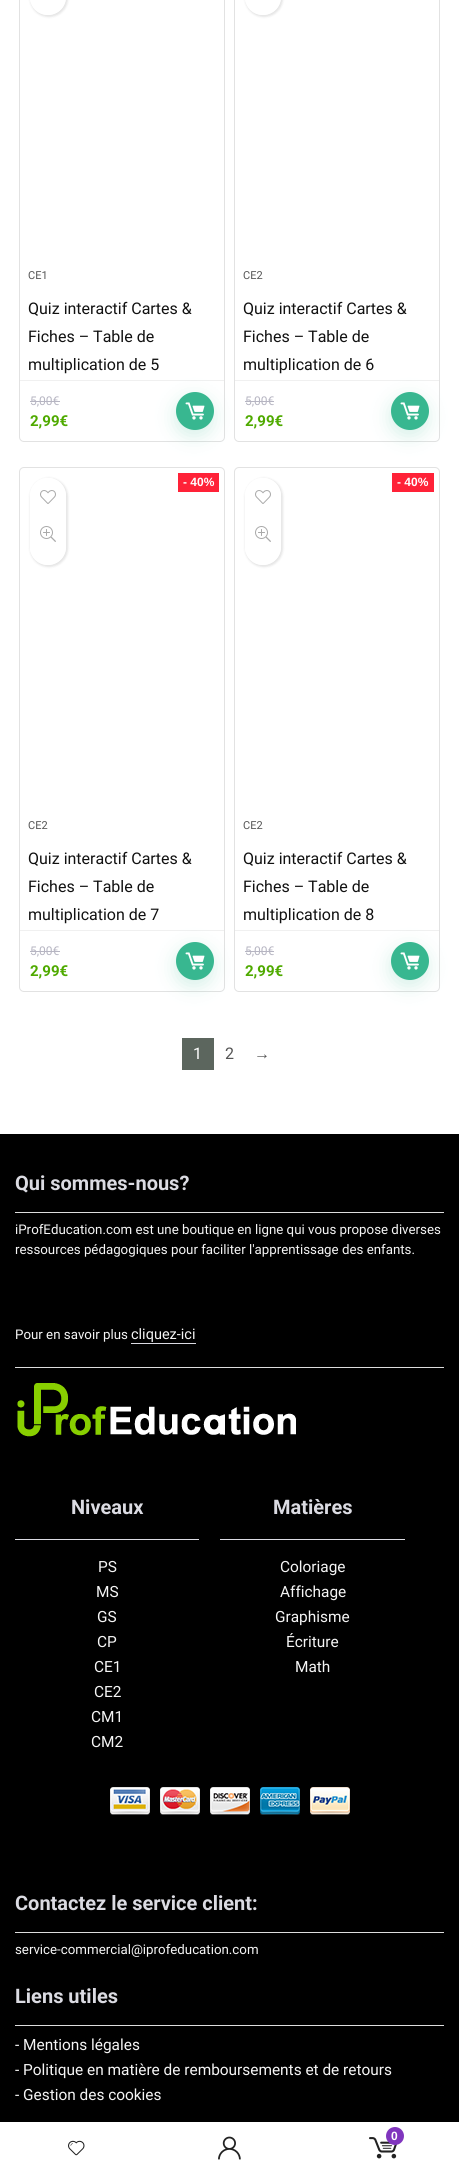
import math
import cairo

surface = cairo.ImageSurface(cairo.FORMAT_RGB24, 459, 2177)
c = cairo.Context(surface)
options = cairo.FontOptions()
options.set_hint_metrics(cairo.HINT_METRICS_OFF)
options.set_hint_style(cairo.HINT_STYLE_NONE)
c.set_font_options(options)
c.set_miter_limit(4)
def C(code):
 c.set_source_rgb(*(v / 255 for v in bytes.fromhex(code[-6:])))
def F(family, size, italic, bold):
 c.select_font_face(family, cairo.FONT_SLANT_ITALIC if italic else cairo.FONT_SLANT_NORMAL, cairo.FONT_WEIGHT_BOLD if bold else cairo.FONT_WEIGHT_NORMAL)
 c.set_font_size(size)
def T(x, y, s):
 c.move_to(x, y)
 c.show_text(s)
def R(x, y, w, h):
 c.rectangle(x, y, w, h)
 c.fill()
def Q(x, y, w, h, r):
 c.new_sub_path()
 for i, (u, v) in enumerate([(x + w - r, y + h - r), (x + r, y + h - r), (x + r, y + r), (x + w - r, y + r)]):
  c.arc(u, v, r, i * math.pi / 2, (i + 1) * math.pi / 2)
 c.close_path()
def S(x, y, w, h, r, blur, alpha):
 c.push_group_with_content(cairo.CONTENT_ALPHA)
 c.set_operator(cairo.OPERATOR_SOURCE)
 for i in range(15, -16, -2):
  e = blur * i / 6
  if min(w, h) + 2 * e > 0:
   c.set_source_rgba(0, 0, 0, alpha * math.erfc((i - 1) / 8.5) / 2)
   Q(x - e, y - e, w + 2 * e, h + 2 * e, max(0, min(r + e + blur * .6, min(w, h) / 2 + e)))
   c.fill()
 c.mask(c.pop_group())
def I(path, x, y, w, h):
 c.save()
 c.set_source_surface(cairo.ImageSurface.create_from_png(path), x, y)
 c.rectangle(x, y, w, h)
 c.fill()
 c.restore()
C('ffffff')
c.paint()
Q(19.5,-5.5,205,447,4.5)
C('e2e2e2')
c.set_line_width(1)
c.stroke()
c.save()
c.set_fill_rule(cairo.FILL_RULE_EVEN_ODD)
c.new_path()
c.move_to(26,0)
c.line_to(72,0)
c.line_to(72,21)
c.line_to(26,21)
c.close_path()
c.move_to(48,-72)
c.curve_to(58,-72,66,-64,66,-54)
c.line_to(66,-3)
c.curve_to(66,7,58,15,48,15)
c.curve_to(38,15,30,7,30,-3)
c.line_to(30,-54)
c.curve_to(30,-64,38,-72,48,-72)
c.close_path()
c.clip()
C('000000')
S(30,-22,38,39,19,1,.1)
c.restore()
c.set_source_rgba(1,1,1,0.78)
Q(30,-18,36,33,18)
c.fill()
F('Roboto',11,0,0)
C('555555')
T(28,279,'CE1')
F('Roboto',16,0,0)
C('111111')
T(28,314,'Quiz interactif Cartes &')
T(28,342,'Fiches – Table de')
T(28,370,'multiplication de 5')
C('f0f0f0')
R(20,380,204,1)
F('Roboto',12,0,0)
C('b6b5c2')
T(30,405,'5,00€')
R(30,401,30,1)
F('Roboto',15,0,1)
C('4faa00')
T(30,426,'2,99€')
C('38b790')
S(175,398,38,38,19,9.5,.2)
C('38b790')
c.arc(195,411,19,0,2 * math.pi)
c.fill()
I('1.png',185,402,20,18)
Q(234.5,-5.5,205,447,4.5)
C('e2e2e2')
c.stroke()
c.save()
c.set_fill_rule(cairo.FILL_RULE_EVEN_ODD)
c.new_path()
c.move_to(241,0)
c.line_to(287,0)
c.line_to(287,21)
c.line_to(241,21)
c.close_path()
c.move_to(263,-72)
c.curve_to(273,-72,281,-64,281,-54)
c.line_to(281,-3)
c.curve_to(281,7,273,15,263,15)
c.curve_to(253,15,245,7,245,-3)
c.line_to(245,-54)
c.curve_to(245,-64,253,-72,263,-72)
c.close_path()
c.clip()
C('000000')
S(245,-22,38,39,19,1,.1)
c.restore()
c.set_source_rgba(1,1,1,0.78)
Q(245,-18,36,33,18)
c.fill()
F('Roboto',11,0,0)
C('555555')
T(243,279,'CE2')
F('Roboto',16,0,0)
C('111111')
T(243,314,'Quiz interactif Cartes &')
T(243,342,'Fiches – Table de')
T(243,370,'multiplication de 6')
C('f0f0f0')
R(235,380,204,1)
F('Roboto',12,0,0)
C('b6b5c2')
T(245,405,'5,00€')
R(245,401,29,1)
F('Roboto',15,0,1)
C('4faa00')
T(245,426,'2,99€')
C('38b790')
S(390,398,38,38,19,9.5,.2)
C('38b790')
c.arc(410,411,19,0,2 * math.pi)
c.fill()
I('1.png',400,402,20,18)
Q(19.5,467.5,205,524,4.5)
C('e2e2e2')
c.stroke()
c.save()
c.set_fill_rule(cairo.FILL_RULE_EVEN_ODD)
c.new_path()
c.move_to(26,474)
c.line_to(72,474)
c.line_to(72,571)
c.line_to(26,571)
c.close_path()
c.move_to(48,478)
c.curve_to(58,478,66,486,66,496)
c.line_to(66,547)
c.curve_to(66,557,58,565,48,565)
c.curve_to(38,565,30,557,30,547)
c.line_to(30,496)
c.curve_to(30,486,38,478,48,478)
c.close_path()
c.clip()
C('000000')
S(30,478,38,89,19,1,.1)
c.restore()
c.set_source_rgba(1,1,1,0.78)
Q(30,478,36,87,18)
c.fill()
I('2.png',40,490,16,14)
I('3.png',40,526,16,16)
C('ff2238')
R(178,473,41,19)
F('Liberation Sans',12,0,1)
C('ffffff')
T(183,486,'- 40%')
F('Roboto',11,0,0)
C('555555')
T(28,829,'CE2')
F('Roboto',16,0,0)
C('111111')
T(28,864,'Quiz interactif Cartes &')
T(28,892,'Fiches – Table de')
T(28,920,'multiplication de 7')
C('f0f0f0')
R(20,930,204,1)
F('Roboto',12,0,0)
C('b6b5c2')
T(30,955,'5,00€')
R(30,951,30,1)
F('Roboto',15,0,1)
C('4faa00')
T(30,976,'2,99€')
C('38b790')
S(175,948,38,38,19,9.5,.2)
C('38b790')
c.arc(195,961,19,0,2 * math.pi)
c.fill()
I('1.png',185,952,20,18)
Q(234.5,467.5,205,524,4.5)
C('e2e2e2')
c.stroke()
c.save()
c.set_fill_rule(cairo.FILL_RULE_EVEN_ODD)
c.new_path()
c.move_to(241,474)
c.line_to(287,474)
c.line_to(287,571)
c.line_to(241,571)
c.close_path()
c.move_to(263,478)
c.curve_to(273,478,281,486,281,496)
c.line_to(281,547)
c.curve_to(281,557,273,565,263,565)
c.curve_to(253,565,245,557,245,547)
c.line_to(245,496)
c.curve_to(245,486,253,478,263,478)
c.close_path()
c.clip()
C('000000')
S(245,478,38,89,19,1,.1)
c.restore()
c.set_source_rgba(1,1,1,0.78)
Q(245,478,36,87,18)
c.fill()
I('2.png',255,490,16,14)
I('3.png',255,526,16,16)
C('ff2238')
R(392,473,42,19)
F('Liberation Sans',12,0,1)
C('ffffff')
T(397,486,'- 40%')
F('Roboto',11,0,0)
C('555555')
T(243,829,'CE2')
F('Roboto',16,0,0)
C('111111')
T(243,864,'Quiz interactif Cartes &')
T(243,892,'Fiches – Table de')
T(243,920,'multiplication de 8')
C('f0f0f0')
R(235,930,204,1)
F('Roboto',12,0,0)
C('b6b5c2')
T(245,955,'5,00€')
R(245,951,29,1)
F('Roboto',15,0,1)
C('4faa00')
T(245,976,'2,99€')
C('38b790')
S(390,948,38,38,19,9.5,.2)
C('38b790')
c.arc(410,961,19,0,2 * math.pi)
c.fill()
I('1.png',400,952,20,18)
C('5c665e')
R(182,1038,32,32)
F('Roboto',16,0,0)
C('ffffff')
T(193,1059,'1')
C('555555')
T(225,1059,'2')
F('Liberation Sans',16,0,0)
T(254,1059,'→')
C('000000')
R(0,1134,459,988)
F('Roboto',20,0,1)
C('dbdbe2')
T(15,1190,'Qui sommes-nous?')
C('dddddd')
R(15,1212,429,1)
F('Roboto',13.3,0,0)
C('f5f5f5')
T(15,1234,'iProfEducation.com est une boutique en ligne qui vous propose diverses')
T(15,1254,'ressources pédagogiques pour faciliter l\'apprentissage des enfants.')
T(15,1339,'Pour en savoir plus')
F('Roboto',14.5,0,0)
T(131,1339,'cliquez-ici')
C('dbdbe2')
R(131,1343,65,1)
C('dddddd')
R(15,1367,429,1)
I('4.png',17,1383,279,54)
C('dbdbe2')
R(15,1539,184,1)
F('Roboto',20,0,1)
T(71,1514,'Niveaux')
F('Roboto',15.4,0,0)
C('f5f5f5')
T(98,1572,'PS')
T(96,1597,'MS')
T(97,1622,'GS')
T(97,1647,'CP')
T(94,1672,'CE1')
T(94,1697,'CE2')
T(91,1722,'CM1')
T(91,1747,'CM2')
C('dbdbe2')
R(220,1539,185,1)
F('Roboto',20,0,1)
T(273,1514,'Matières')
F('Roboto',15.4,0,0)
C('f5f5f5')
T(280,1572,'Coloriage')
T(280,1597,'Affichage')
T(275,1622,'Graphisme')
T(286,1647,'Écriture')
T(295,1672,'Math')
I('5.png',110,1787,240,28)
F('Roboto',20,0,1)
C('dbdbe2')
T(15,1910,'Contactez le service client:')
C('dddddd')
R(15,1932,429,1)
F('Roboto',13.3,0,0)
C('f5f5f5')
T(15,1954,'service-commercial@iprofeducation.com')
F('Roboto',20,0,1)
C('dbdbe2')
T(15,2003,'Liens utiles')
C('dddddd')
R(15,2025,429,1)
F('Roboto',15.4,0,0)
C('f5f5f5')
T(15,2050,'- Mentions légales')
T(15,2075,'- Politique en matière de remboursements et de retours')
T(15,2100,'- Gestion des cookies')
I('6.png',68,2140,17,16)
I('7.png',218,2136,23,24)
I('8.png',369,2137,28,22)
C('8035be')
c.arc(395,2136,9,0,2 * math.pi)
c.fill()
F('Liberation Sans',12,0,1)
C('ffffff')
T(391,2140,'0')
surface.write_to_png('o.png')
